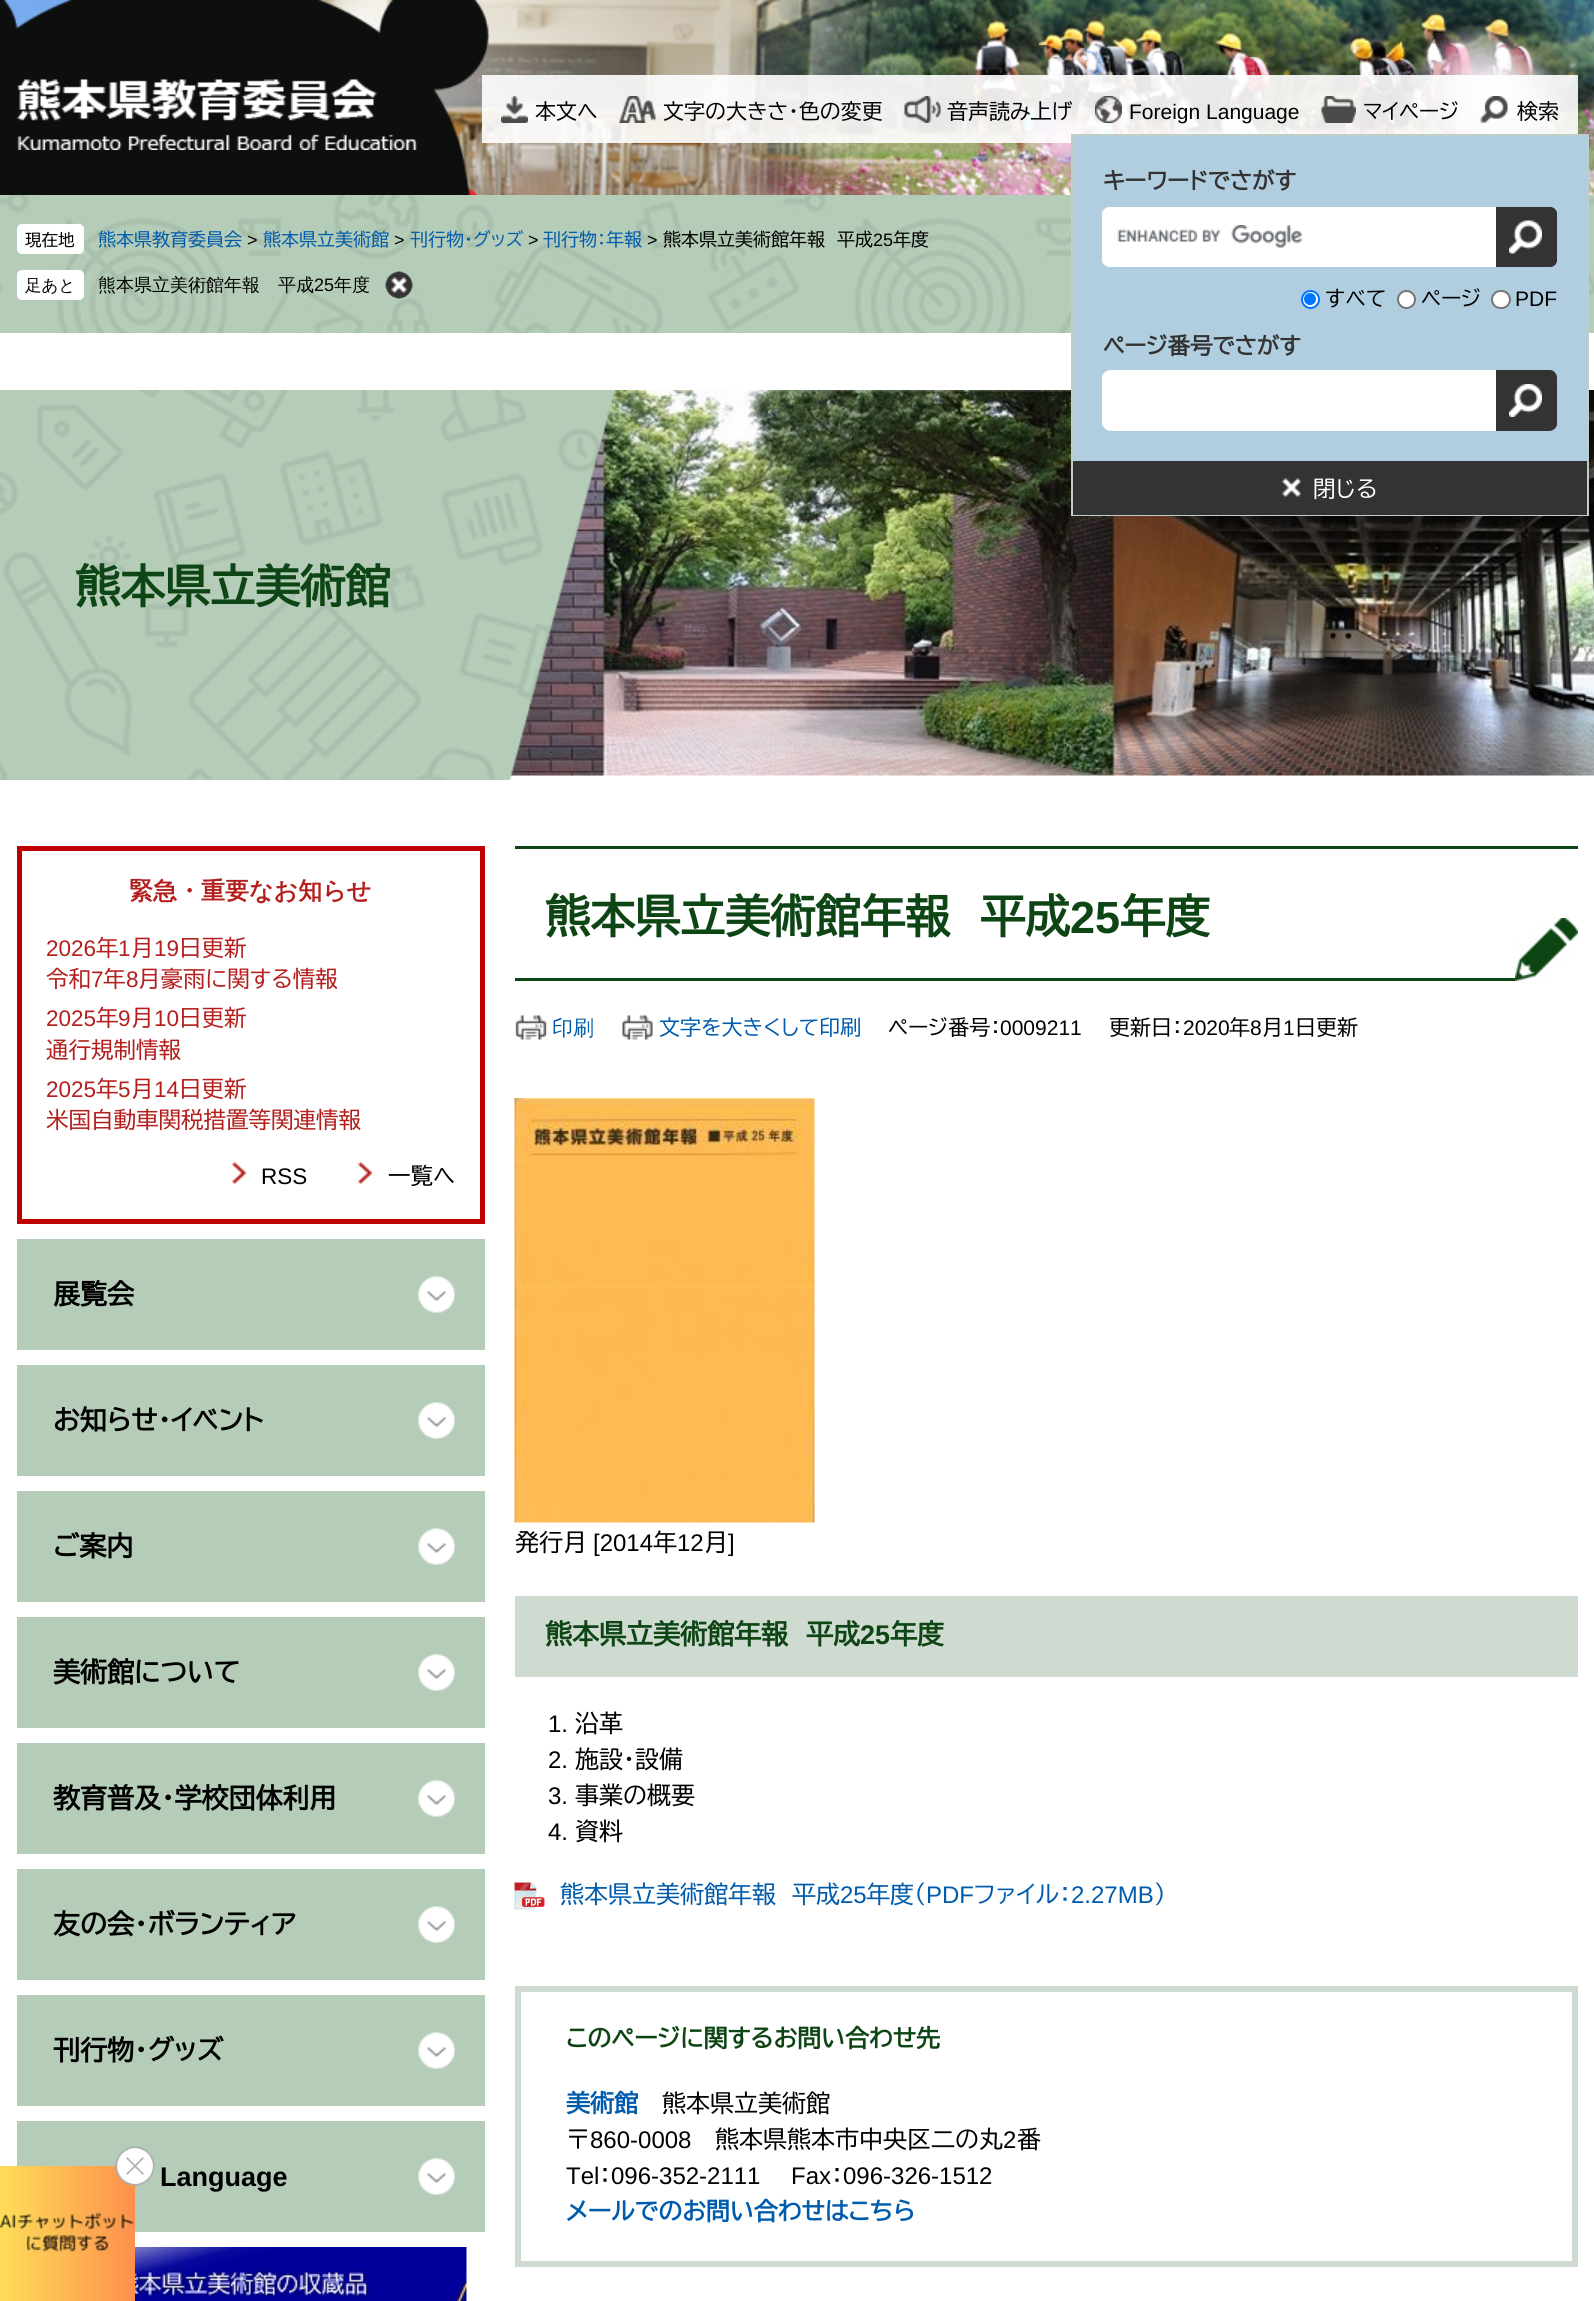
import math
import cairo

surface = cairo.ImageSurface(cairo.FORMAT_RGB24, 1594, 2301)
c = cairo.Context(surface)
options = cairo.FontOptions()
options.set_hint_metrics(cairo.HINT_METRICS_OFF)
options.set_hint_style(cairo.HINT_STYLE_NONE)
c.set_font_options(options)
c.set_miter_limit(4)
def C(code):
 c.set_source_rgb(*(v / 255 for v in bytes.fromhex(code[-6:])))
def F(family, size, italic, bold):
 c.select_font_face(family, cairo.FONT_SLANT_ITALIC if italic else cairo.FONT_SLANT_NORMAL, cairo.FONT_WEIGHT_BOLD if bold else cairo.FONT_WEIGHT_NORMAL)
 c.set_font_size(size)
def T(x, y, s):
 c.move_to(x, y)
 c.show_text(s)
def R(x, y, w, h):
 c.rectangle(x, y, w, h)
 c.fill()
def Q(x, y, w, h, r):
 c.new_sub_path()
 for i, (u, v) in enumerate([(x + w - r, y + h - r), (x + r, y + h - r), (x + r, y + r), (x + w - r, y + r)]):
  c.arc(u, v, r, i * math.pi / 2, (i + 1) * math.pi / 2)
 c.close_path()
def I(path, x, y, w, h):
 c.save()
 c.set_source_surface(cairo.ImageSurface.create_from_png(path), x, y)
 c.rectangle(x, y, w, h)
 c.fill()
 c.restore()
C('ffffff')
c.paint()
I('1.png',0,195,1594,138)
C('ffffff')
Q(17,224,67,30,5)
c.fill()
F('BIZ UDPGothic',16.5,0,0)
C('000000')
T(25,246,'現在地')
F('BIZ UDPGothic',18,0,0)
C('005bac')
T(98,246,'熊本県教育委員会')
F('Liberation Sans',18,0,0)
C('000000')
T(247,246,'>')
F('BIZ UDPGothic',18,0,0)
C('005bac')
T(263,246,'熊本県立美術館')
F('Liberation Sans',18,0,0)
C('000000')
T(394,246,'>')
F('BIZ UDPGothic',18,0,0)
C('005bac')
T(410,246,'刊行物・グッズ')
F('Liberation Sans',18,0,0)
C('000000')
T(528,246,'>')
F('BIZ UDPGothic',18,0,0)
C('005bac')
T(543,246,'刊行物：年報')
F('Liberation Sans',18,0,0)
C('000000')
T(647,246,'>')
F('BIZ UDPGothic',18,0,0)
T(663,246,'熊本県立美術館年報　平成')
F('Liberation Sans',18,0,0)
T(873,246,'25')
F('BIZ UDPGothic',18,0,0)
T(893,246,'年度')
C('ffffff')
Q(17,270,67,30,5)
c.fill()
F('WenQuanYi Zen Hei Medium',16.5,0,0)
C('000000')
T(25,291,'足あと')
F('WenQuanYi Zen Hei Medium',18,0,0)
T(98,291,'熊本県立美術館年報　平成')
F('Liberation Sans',18,0,0)
T(314,291,'25')
F('WenQuanYi Zen Hei Medium',18,0,0)
T(334,291,'年度')
I('2.png',385,271,28,28)
I('3.png',0,0,1594,195)
I('4.png',16,79,401,71)
c.set_source_rgba(1,1,1,0.9)
R(482,75,1096,68)
I('5.png',501,96,27,27)
F('BIZ UDPGothic',21,0,0)
C('000000')
T(535,119,'本文へ')
I('6.png',619,96,37,27)
T(663,119,'文字の大きさ・色の変更')
I('7.png',904,96,37,27)
T(947,119,'音声読み上げ')
I('8.png',1480,96,28,27)
T(1517,119,'検索')
I('16.png',509,390,1085,386)
C('b0cee0')
R(1073,136,514,325)
c.rectangle(1072,135,516,380)
C('c0cec9')
c.stroke()
F('BIZ UDPGothic',22.5,0,1)
C('333333')
T(1103,189,'キーワードでさがす')
C('ffffff')
c.new_path()
c.move_to(1111,207)
c.line_to(1497,207)
c.line_to(1497,267)
c.line_to(1111,267)
c.curve_to(1106.5,267,1103,263.5,1103,259)
c.line_to(1103,215)
c.curve_to(1103,210.5,1106.5,207,1111,207)
c.close_path()
c.fill()
I('9.png',1117,225,185,23)
c.set_fill_rule(cairo.FILL_RULE_EVEN_ODD)
c.new_path()
c.move_to(1110,207)
c.line_to(1497,207)
c.line_to(1497,267)
c.line_to(1110,267)
c.curve_to(1106,267,1102,264,1102,260)
c.line_to(1102,214)
c.curve_to(1102,210,1106,207,1110,207)
c.close_path()
c.move_to(1110,208)
c.line_to(1497,208)
c.line_to(1497,266)
c.line_to(1110,266)
c.curve_to(1107,266,1104,263,1104,260)
c.line_to(1104,214)
c.curve_to(1104,211,1107,208,1110,208)
c.close_path()
c.fill()
C('333333')
c.new_path()
c.move_to(1496,207)
c.line_to(1549,207)
c.curve_to(1553.5,207,1557,210.5,1557,215)
c.line_to(1557,259)
c.curve_to(1557,263.5,1553.5,267,1549,267)
c.line_to(1496,267)
c.close_path()
c.fill()
I('10.png',1509,220,33,34)
c.new_path()
c.move_to(1496,207)
c.line_to(1550,207)
c.curve_to(1554,207,1557,210,1557,214)
c.line_to(1557,260)
c.curve_to(1557,264,1554,267,1550,267)
c.line_to(1496,267)
c.close_path()
c.move_to(1496,208)
c.line_to(1550,208)
c.curve_to(1553,208,1556,211,1556,214)
c.line_to(1556,260)
c.curve_to(1556,263,1553,266,1550,266)
c.line_to(1496,266)
c.close_path()
c.fill()
C('ffffff')
c.arc(1310.5,299.5,8.5,0,2 * math.pi)
c.fill_preserve()
C('0075ff')
c.stroke()
c.arc(1310,299,6,0,2 * math.pi)
c.fill()
F('BIZ UDPGothic',21,0,0)
C('000000')
T(1325,306,'すべて')
C('ffffff')
c.new_path()
c.arc(1406.5,299.5,8.5,0,2 * math.pi)
c.fill_preserve()
C('767676')
c.stroke()
C('000000')
T(1421,306,'ページ')
C('ffffff')
Q(1492,291,18,17,8.5)
c.fill_preserve()
C('767676')
c.stroke()
F('Liberation Sans',21,0,0)
C('000000')
T(1515,306,'PDF')
F('BIZ UDPGothic',22.5,0,1)
C('333333')
T(1103,354,'ページ番号でさがす')
C('ffffff')
c.new_path()
c.move_to(1111,371)
c.line_to(1497,371)
c.line_to(1497,431)
c.line_to(1111,431)
c.curve_to(1106.5,431,1103,427.5,1103,423)
c.line_to(1103,379)
c.curve_to(1103,374.5,1106.5,371,1111,371)
c.close_path()
c.fill()
c.new_path()
c.move_to(1110,370)
c.line_to(1497,370)
c.line_to(1497,430)
c.line_to(1110,430)
c.curve_to(1106,430,1102,427,1102,423)
c.line_to(1102,378)
c.curve_to(1102,374,1106,370,1110,370)
c.close_path()
c.move_to(1110,372)
c.line_to(1497,372)
c.line_to(1497,429)
c.line_to(1110,429)
c.curve_to(1107,429,1104,426,1104,423)
c.line_to(1104,378)
c.curve_to(1104,375,1107,372,1110,372)
c.close_path()
c.fill()
C('333333')
c.new_path()
c.move_to(1496,371)
c.line_to(1549,371)
c.curve_to(1553.5,371,1557,374.5,1557,379)
c.line_to(1557,423)
c.curve_to(1557,427.5,1553.5,431,1549,431)
c.line_to(1496,431)
c.close_path()
c.fill()
I('11.png',1509,384,33,33)
c.new_path()
c.move_to(1496,370)
c.line_to(1550,370)
c.curve_to(1554,370,1557,374,1557,378)
c.line_to(1557,423)
c.curve_to(1557,427,1554,430,1550,430)
c.line_to(1496,430)
c.close_path()
c.move_to(1496,372)
c.line_to(1550,372)
c.curve_to(1553,372,1556,375,1556,378)
c.line_to(1556,423)
c.curve_to(1556,426,1553,429,1550,429)
c.line_to(1496,429)
c.close_path()
c.fill()
R(1073,461,514,54)
I('12.png',1282,478,19,19)
F('BIZ UDPGothic',22.5,0,0)
C('ffffff')
T(1313,497,'閉じる')
I('13.png',1095,96,27,27)
F('Liberation Sans',21,0,0)
C('000000')
T(1129,119,'Foreign Language')
I('14.png',1321,96,35,27)
F('BIZ UDPGothic',21,0,0)
T(1363,119,'マイページ')
I('15.png',0,390,615,390)
F('BIZ UDPGothic',45,0,1)
C('0d4514')
T(75,603,'熊本県立美術館')
c.rectangle(19.5,848.5,463,373)
C('be0000')
c.set_line_width(5)
c.stroke()
F('WenQuanYi Zen Hei',24,0,1)
C('b41f1d')
T(129,899,'緊急・重要なお知らせ')
F('Liberation Sans',22.5,0,0)
T(46,956,'2026')
F('BIZ UDPGothic',22.5,0,0)
T(96,956,'年')
F('Liberation Sans',22.5,0,0)
T(118,956,'1')
F('BIZ UDPGothic',22.5,0,0)
T(131,956,'月')
F('Liberation Sans',22.5,0,0)
T(154,956,'19')
F('BIZ UDPGothic',22.5,0,0)
T(179,956,'日更新')
T(46,987,'令和')
F('Liberation Sans',22.5,0,0)
T(91,987,'7')
F('BIZ UDPGothic',22.5,0,0)
T(103,987,'年')
F('Liberation Sans',22.5,0,0)
T(126,987,'8')
F('BIZ UDPGothic',22.5,0,0)
T(138,987,'月豪雨に関する情報')
F('Liberation Sans',22.5,0,0)
T(46,1026,'2025')
F('BIZ UDPGothic',22.5,0,0)
T(96,1026,'年')
F('Liberation Sans',22.5,0,0)
T(118,1026,'9')
F('BIZ UDPGothic',22.5,0,0)
T(131,1026,'月')
F('Liberation Sans',22.5,0,0)
T(154,1026,'10')
F('BIZ UDPGothic',22.5,0,0)
T(179,1026,'日更新')
T(46,1058,'通行規制情報')
F('Liberation Sans',22.5,0,0)
T(46,1097,'2025')
F('BIZ UDPGothic',22.5,0,0)
T(96,1097,'年')
F('Liberation Sans',22.5,0,0)
T(118,1097,'5')
F('BIZ UDPGothic',22.5,0,0)
T(131,1097,'月')
F('Liberation Sans',22.5,0,0)
T(154,1097,'14')
F('BIZ UDPGothic',22.5,0,0)
T(179,1097,'日更新')
T(46,1128,'米国自動車関税措置等関連情報')
I('17.png',232,1162,14,22)
F('Liberation Sans',22.5,0,0)
C('000000')
T(261,1184,'RSS')
I('18.png',358,1162,14,22)
F('BIZ UDPGothic',22.5,0,0)
T(388,1184,'一覧へ')
C('b4ccb8')
R(17,1239,468,111)
I('19.png',418,1276,37,37)
F('BIZ UDPGothic',27,0,1)
C('000000')
T(53,1304,'展覧会')
C('b4ccb8')
R(17,1365,468,111)
I('19.png',418,1402,37,37)
C('000000')
T(53,1430,'お知らせ・イベント')
C('b4ccb8')
R(17,1491,468,111)
I('19.png',418,1528,37,37)
C('000000')
T(53,1556,'ご案内')
C('b4ccb8')
R(17,1617,468,111)
I('19.png',418,1654,37,37)
C('000000')
T(53,1682,'美術館について')
C('b4ccb8')
R(17,1743,468,111)
I('19.png',418,1780,37,37)
C('000000')
T(53,1808,'教育普及・学校団体利用')
C('b4ccb8')
R(17,1869,468,111)
I('19.png',418,1906,37,37)
C('000000')
T(53,1934,'友の会・ボランティア')
C('b4ccb8')
R(17,1995,468,111)
I('19.png',418,2032,37,37)
C('000000')
T(53,2060,'刊行物・グッズ')
C('b4ccb8')
R(17,2121,468,111)
I('19.png',418,2158,37,37)
F('Liberation Sans',27,0,1)
C('000000')
T(160,2186,'Language')
I('20.png',135,2247,332,54)
C('0d4514')
R(515,846,1063,3)
R(515,978,1000,3)
F('BIZ UDPGothic',45,0,1)
T(545,933,'熊本県立美術館年報　平成')
F('Liberation Sans',45,0,1)
T(1070,933,'25')
F('BIZ UDPGothic',45,0,1)
T(1120,933,'年度')
I('21.png',1515,918,63,63)
I('22.png',515,1015,32,25)
F('WenQuanYi Zen Hei Medium',21,0,0)
C('005bac')
T(552,1035,'印刷')
I('23.png',622,1015,31,25)
F('BIZ UDPGothic',21,0,0)
T(659,1035,'文字を大きくして印刷')
C('000000')
T(888,1035,'ページ番号：')
F('Liberation Sans',21,0,0)
T(1000,1035,'0009211')
F('BIZ UDPGothic',21,0,0)
T(1109,1035,'更新日：')
F('Liberation Sans',21,0,0)
T(1183,1035,'2020')
F('BIZ UDPGothic',21,0,0)
T(1229,1035,'年')
F('Liberation Sans',21,0,0)
T(1250,1035,'8')
F('BIZ UDPGothic',21,0,0)
T(1262,1035,'月')
F('Liberation Sans',21,0,0)
T(1283,1035,'1')
F('BIZ UDPGothic',21,0,0)
T(1295,1035,'日更新')
I('24.png',514,1098,301,425)
F('BIZ UDPGothic',24,0,0)
T(515,1551,'発行月')
F('Liberation Sans',24,0,0)
T(593,1551,'[2014')
F('BIZ UDPGothic',24,0,0)
T(653,1551,'年')
F('Liberation Sans',24,0,0)
T(677,1551,'12')
F('BIZ UDPGothic',24,0,0)
T(704,1551,'月')
F('Liberation Sans',24,0,0)
T(728,1551,']')
C('cfdad0')
R(515,1596,1063,81)
F('BIZ UDPGothic',27,0,1)
C('0d4514')
T(545,1644,'熊本県立美術館年報　平成')
F('Liberation Sans',27,0,1)
T(860,1644,'25')
F('BIZ UDPGothic',27,0,1)
T(890,1644,'年度')
F('Liberation Sans',24,0,0)
C('000000')
T(548,1732,'1.')
F('BIZ UDPGothic',24,0,0)
T(575,1732,'沿革')
F('Liberation Sans',24,0,0)
T(548,1768,'2.')
F('BIZ UDPGothic',24,0,0)
T(575,1768,'施設・設備')
F('Liberation Sans',24,0,0)
T(548,1804,'3.')
F('BIZ UDPGothic',24,0,0)
T(575,1804,'事業の概要')
F('Liberation Sans',24,0,0)
T(548,1840,'4.')
F('BIZ UDPGothic',24,0,0)
T(575,1840,'資料')
I('25.png',514,1882,31,28)
C('005bac')
T(560,1903,'熊本県立美術館年報　平成')
F('Liberation Sans',24,0,0)
T(840,1903,'25')
F('BIZ UDPGothic',24,0,0)
T(866,1903,'年度（')
F('Liberation Sans',24,0,0)
T(926,1903,'PDF')
F('BIZ UDPGothic',24,0,0)
T(974,1903,'ファイル：')
F('Liberation Sans',24,0,0)
T(1071,1903,'2.27MB')
F('BIZ UDPGothic',24,0,0)
T(1154,1903,'）')
c.rectangle(518,1989,1057,275)
C('cfdad0')
c.set_line_width(6)
c.stroke()
F('BIZ UDPGothic',24,0,1)
C('0d4514')
T(566,2047,'このページに関するお問い合わせ先')
C('005bac')
T(566,2112,'美術館')
F('BIZ UDPGothic',24,0,0)
C('000000')
T(662,2112,'熊本県立美術館')
T(566,2148,'〒')
F('Liberation Sans',24,0,0)
T(590,2148,'860-0008')
F('BIZ UDPGothic',24,0,0)
T(715,2148,'熊本県熊本市中央区二の丸')
F('Liberation Sans',24,0,0)
T(1003,2148,'2')
F('BIZ UDPGothic',24,0,0)
T(1017,2148,'番')
F('Liberation Sans',24,0,0)
T(566,2184,'Tel')
F('BIZ UDPGothic',24,0,0)
T(599,2184,'：')
F('Liberation Sans',24,0,0)
T(611,2184,'096-352-2111')
T(791,2184,'Fax')
F('BIZ UDPGothic',24,0,0)
T(831,2184,'：')
F('Liberation Sans',24,0,0)
T(843,2184,'096-326-1512')
F('BIZ UDPGothic',24,0,1)
C('005bac')
T(566,2220,'メールでのお問い合わせはこちら')
I('27.png',0,2166,135,135)
I('26.png',115,2146,40,40)
surface.write_to_png('o.png')
